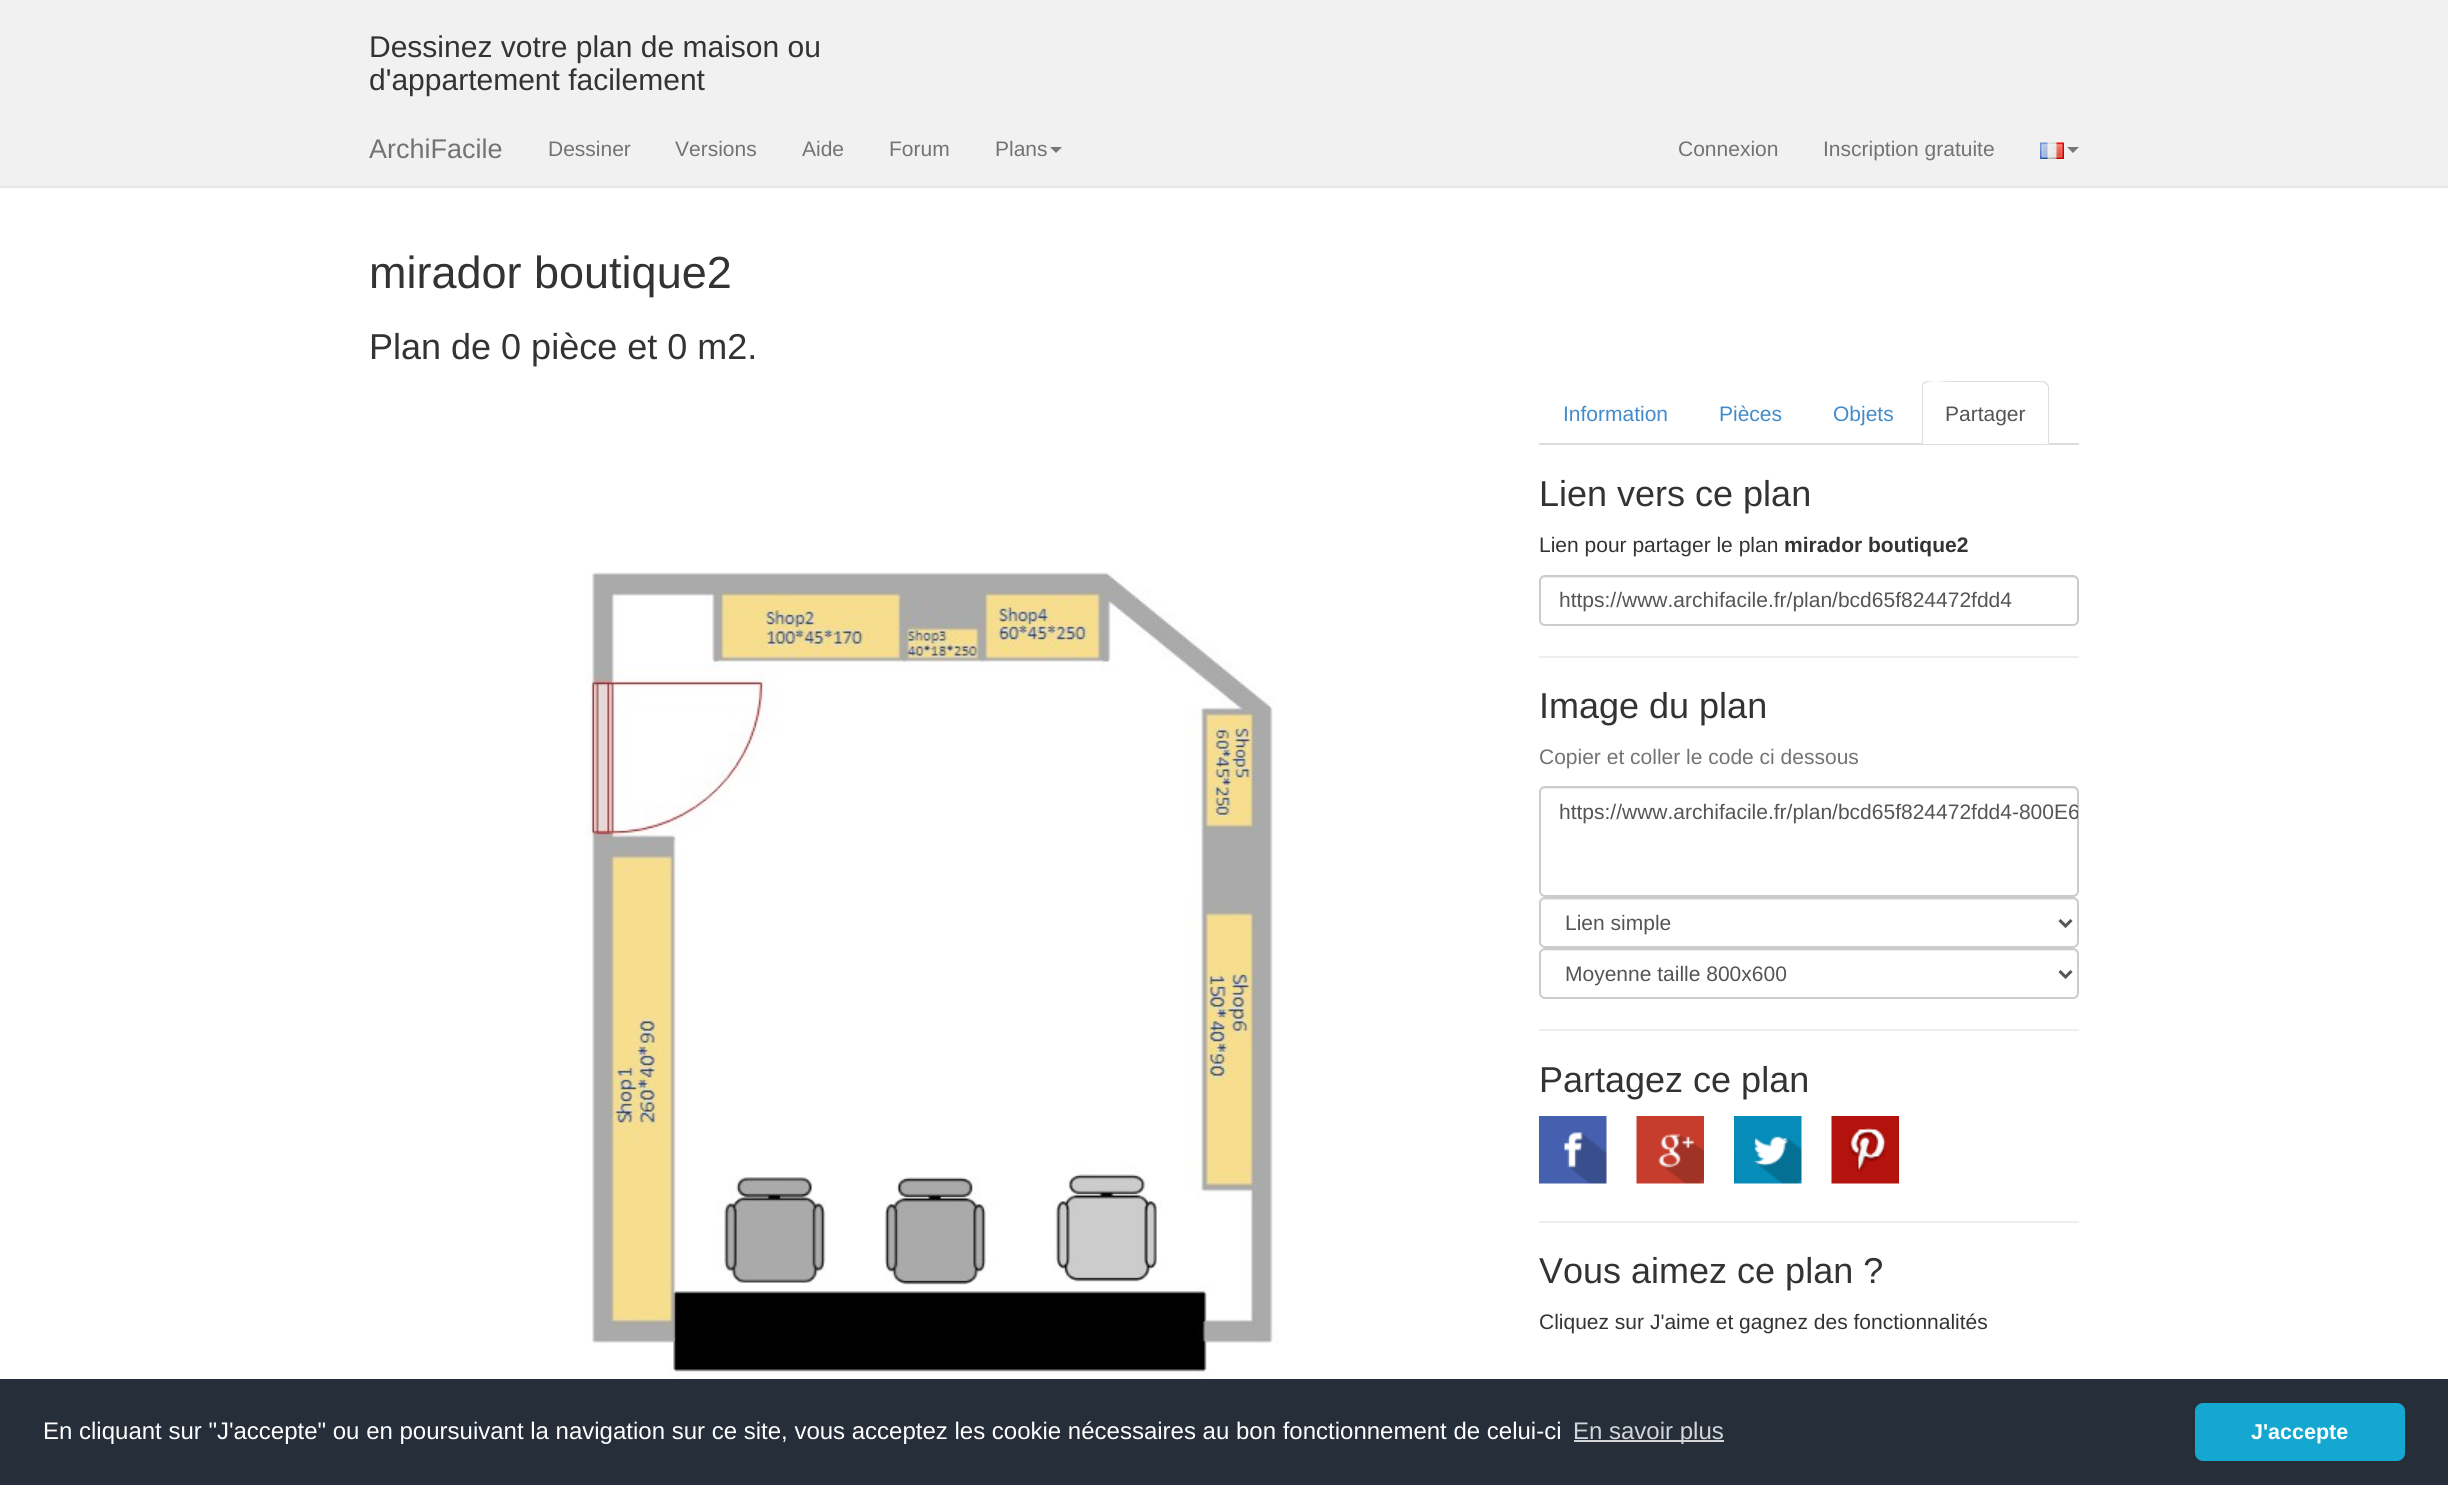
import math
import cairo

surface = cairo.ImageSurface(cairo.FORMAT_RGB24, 2448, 1485)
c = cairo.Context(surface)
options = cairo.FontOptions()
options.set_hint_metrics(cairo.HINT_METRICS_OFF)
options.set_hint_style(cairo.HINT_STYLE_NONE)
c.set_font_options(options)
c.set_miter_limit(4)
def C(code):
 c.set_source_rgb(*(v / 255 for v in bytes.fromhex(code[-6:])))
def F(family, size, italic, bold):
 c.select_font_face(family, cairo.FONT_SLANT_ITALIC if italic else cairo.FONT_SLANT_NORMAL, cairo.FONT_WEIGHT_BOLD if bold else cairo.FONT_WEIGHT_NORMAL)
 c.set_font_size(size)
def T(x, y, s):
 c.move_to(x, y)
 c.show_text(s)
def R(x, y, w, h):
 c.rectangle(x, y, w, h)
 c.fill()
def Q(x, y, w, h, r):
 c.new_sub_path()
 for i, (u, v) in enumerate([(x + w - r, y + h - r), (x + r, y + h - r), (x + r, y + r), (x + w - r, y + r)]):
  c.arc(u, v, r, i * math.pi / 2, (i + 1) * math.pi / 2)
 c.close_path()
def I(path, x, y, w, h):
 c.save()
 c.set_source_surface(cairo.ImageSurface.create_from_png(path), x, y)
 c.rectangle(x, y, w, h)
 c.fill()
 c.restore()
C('ffffff')
c.paint()
C('f1f1f1')
R(0,0,2448,186)
F('Liberation Sans',30,0,0)
C('333333')
T(369,57,'Dessinez votre plan de maison ou')
T(369,90,'d\'appartement facilement')
C('e7e7e7')
R(0,186,2448,2)
F('Liberation Sans',27,0,0)
C('737373')
T(369,158,'ArchiFacile')
F('Liberation Sans',21,0,0)
T(548,156,'Dessiner')
T(675,156,'Versions')
T(802,156,'Aide')
T(889,156,'Forum')
T(995,156,'Plans')
C('777777')
c.new_path()
c.move_to(1050,147)
c.line_to(1062,147)
c.line_to(1056,153)
c.close_path()
c.fill()
C('737373')
T(1678,156,'Connexion')
T(1823,156,'Inscription gratuite')
I('1.png',2040,142,24,17)
C('777777')
c.new_path()
c.move_to(2067,147)
c.line_to(2079,147)
c.line_to(2073,153)
c.close_path()
c.fill()
F('Liberation Sans',45,0,0)
C('333333')
T(369,288,'mirador boutique2')
F('Liberation Sans',36,0,0)
T(369,359,'Plan de 0 pièce et 0 m2.')
I('2.png',585,572,693,806)
C('dddddd')
R(1539,443,540,2)
F('Liberation Sans',21,0,0)
C('428bca')
T(1563,421,'Information')
T(1719,421,'Pièces')
T(1833,421,'Objets')
C('ffffff')
c.new_path()
c.move_to(1928,381)
c.line_to(2043,381)
c.curve_to(2046.5,381,2049,383.5,2049,387)
c.line_to(2049,444)
c.line_to(1922,444)
c.line_to(1922,387)
c.curve_to(1922,383.5,1924.5,381,1928,381)
c.close_path()
c.fill()
C('dddddd')
c.new_path()
c.move_to(1928,381)
c.curve_to(1926,381,1924,382,1923,383)
c.line_to(1924,384)
c.curve_to(1929,379,1946,382,1947,382)
c.line_to(2043,382)
c.line_to(2046,384)
c.line_to(2047,383)
c.curve_to(2046,382,2044,381,2043,381)
c.close_path()
c.fill()
c.new_path()
c.move_to(2049,444)
c.line_to(2049,387)
c.curve_to(2049,386,2048,384,2047,383)
c.line_to(2046,384)
c.line_to(2048,387)
c.line_to(2048,442)
c.line_to(2047,442)
c.close_path()
c.fill()
c.new_path()
c.move_to(1923,383)
c.curve_to(1922,384,1922,386,1922,387)
c.line_to(1922,444)
c.line_to(1924,442)
c.line_to(1923,442)
c.line_to(1923,387)
c.curve_to(1923,386,1923,385,1924,384)
c.close_path()
c.fill()
C('555555')
T(1945,421,'Partager')
F('Liberation Sans',36,0,0)
C('333333')
T(1539,506,'Lien vers ce plan')
F('Liberation Sans',21,0,0)
T(1539,552,'Lien pour partager le plan')
F('Liberation Sans',21,0,1)
T(1784,552,'mirador boutique2')
C('ececec')
c.new_path()
c.move_to(1545,578)
c.line_to(2073,578)
c.curve_to(2075,578,2078,580,2078,582)
c.line_to(2078,581)
c.curve_to(2078,578,2076,576,2073,576)
c.line_to(1546,576)
c.curve_to(1544,576,1542,578,1541,580)
c.curve_to(1542,579,1544,578,1545,578)
c.close_path()
c.fill()
Q(1540,576,538,49,5)
C('cccccc')
c.stroke()
F('Liberation Sans',21,0,0)
C('555555')
T(1559,607,'https://www.archifacile.fr/plan/bcd65f824472fdd4')
C('eeeeee')
R(1539,656,540,2)
F('Liberation Sans',36,0,0)
C('333333')
T(1539,718,'Image du plan')
F('Liberation Sans',21,0,0)
C('737373')
T(1539,764,'Copier et coller le code ci dessous')
C('ececec')
c.new_path()
c.move_to(1545,789)
c.line_to(2073,789)
c.curve_to(2075,789,2078,791,2078,794)
c.line_to(2078,793)
c.curve_to(2078,790,2076,788,2073,788)
c.line_to(1546,788)
c.curve_to(1544,788,1543,789,1542,790)
c.close_path()
c.fill()
Q(1540,787,538,109,5)
C('cccccc')
c.stroke()
c.save()
Q(1541,788,537,108,5)
c.clip()
C('555555')
T(1559,819,'https://www.archifacile.fr/plan/bcd65f824472fdd4-800E6')
c.restore()
C('ececec')
c.new_path()
c.move_to(1545,900)
c.line_to(2073,900)
c.curve_to(2075,900,2078,902,2078,904)
c.curve_to(2078,901,2076,899,2073,899)
c.line_to(1546,899)
c.curve_to(1544,899,1543,900,1542,901)
c.close_path()
c.fill()
Q(1540,898,538,49,5)
C('cccccc')
c.stroke()
c.new_path()
c.move_to(2059.5,920)
c.line_to(2065.5,926)
c.line_to(2071.5,920)
C('555555')
c.set_line_width(3)
c.stroke()
T(1565,930,'Lien simple')
C('ececec')
c.new_path()
c.move_to(1545,951)
c.line_to(2073,951)
c.curve_to(2075,951,2078,953,2078,956)
c.line_to(2078,955)
c.curve_to(2078,952,2076,950,2073,950)
c.line_to(1546,950)
c.curve_to(1544,950,1543,951,1542,952)
c.close_path()
c.fill()
Q(1540,949,538,49,5)
C('cccccc')
c.set_line_width(2)
c.stroke()
c.new_path()
c.move_to(2059.5,971)
c.line_to(2065.5,977)
c.line_to(2071.5,971)
C('555555')
c.set_line_width(3)
c.stroke()
T(1565,981,'Moyenne taille 800x600')
C('eeeeee')
R(1539,1029,540,2)
F('Liberation Sans',36,0,0)
C('333333')
T(1539,1092,'Partagez ce plan')
I('3.png',1539,1116,68,68)
I('4.png',1636,1116,68,68)
I('5.png',1734,1116,68,68)
I('6.png',1831,1116,68,68)
C('eeeeee')
R(1539,1221,540,2)
C('333333')
T(1539,1283,'Vous aimez ce plan ?')
F('Liberation Sans',21,0,0)
T(1539,1329,'Cliquez sur J\'aime et gagnez des fonctionnalités')
C('252e39')
R(0,1379,2448,106)
F('Liberation Sans',24,0,0)
C('ffffff')
T(43,1439,'En cliquant sur "J\'accepte" ou en poursuivant la navigation sur ce site, vous acceptez les cookie nécessaires au bon fonctionnement de celui-ci')
C('d3d5d7')
R(1574,1440,150,2)
T(1573,1439,'En savoir plus')
C('14a7d0')
Q(2195,1403,210,58,8)
c.fill()
F('Liberation Sans',21.5,0,1)
C('ffffff')
T(2251,1439,'J\'accepte')
surface.write_to_png('o.png')
